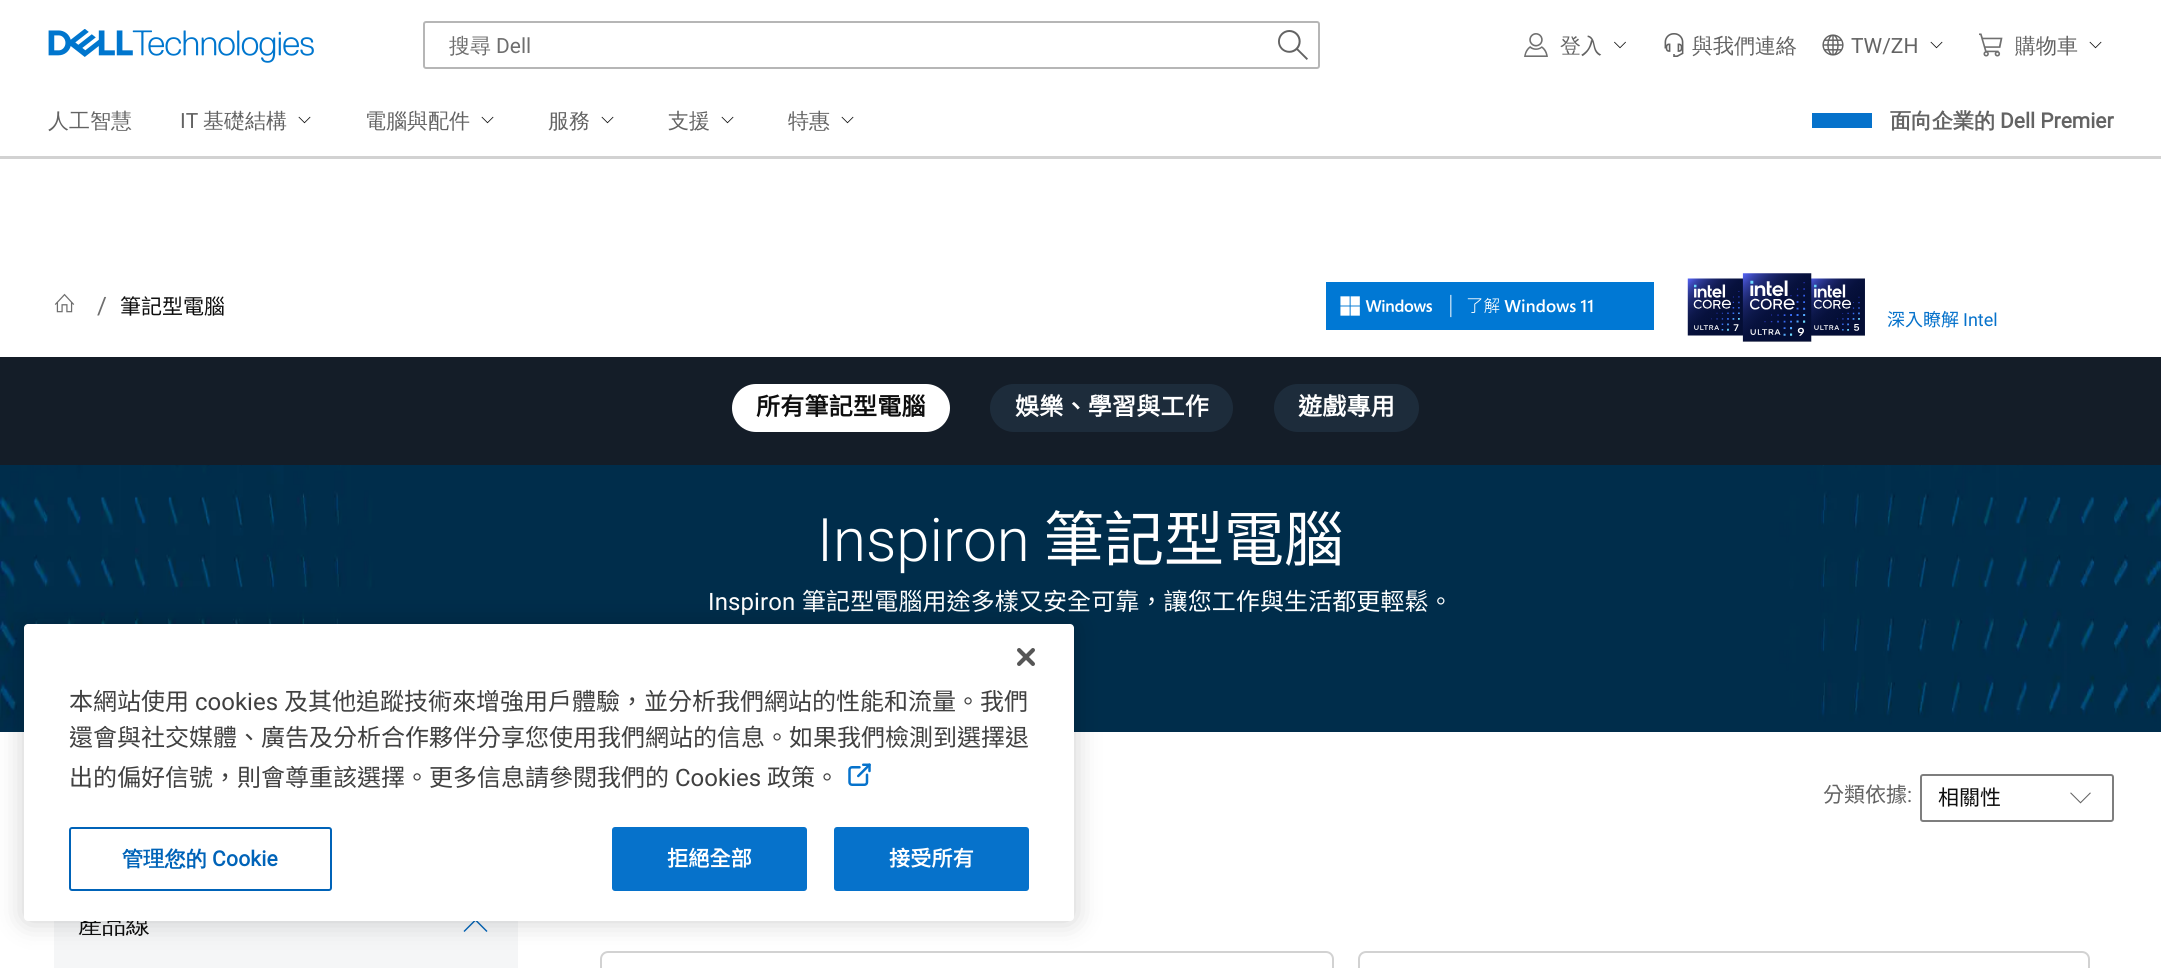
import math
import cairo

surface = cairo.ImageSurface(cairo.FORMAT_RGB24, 2161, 968)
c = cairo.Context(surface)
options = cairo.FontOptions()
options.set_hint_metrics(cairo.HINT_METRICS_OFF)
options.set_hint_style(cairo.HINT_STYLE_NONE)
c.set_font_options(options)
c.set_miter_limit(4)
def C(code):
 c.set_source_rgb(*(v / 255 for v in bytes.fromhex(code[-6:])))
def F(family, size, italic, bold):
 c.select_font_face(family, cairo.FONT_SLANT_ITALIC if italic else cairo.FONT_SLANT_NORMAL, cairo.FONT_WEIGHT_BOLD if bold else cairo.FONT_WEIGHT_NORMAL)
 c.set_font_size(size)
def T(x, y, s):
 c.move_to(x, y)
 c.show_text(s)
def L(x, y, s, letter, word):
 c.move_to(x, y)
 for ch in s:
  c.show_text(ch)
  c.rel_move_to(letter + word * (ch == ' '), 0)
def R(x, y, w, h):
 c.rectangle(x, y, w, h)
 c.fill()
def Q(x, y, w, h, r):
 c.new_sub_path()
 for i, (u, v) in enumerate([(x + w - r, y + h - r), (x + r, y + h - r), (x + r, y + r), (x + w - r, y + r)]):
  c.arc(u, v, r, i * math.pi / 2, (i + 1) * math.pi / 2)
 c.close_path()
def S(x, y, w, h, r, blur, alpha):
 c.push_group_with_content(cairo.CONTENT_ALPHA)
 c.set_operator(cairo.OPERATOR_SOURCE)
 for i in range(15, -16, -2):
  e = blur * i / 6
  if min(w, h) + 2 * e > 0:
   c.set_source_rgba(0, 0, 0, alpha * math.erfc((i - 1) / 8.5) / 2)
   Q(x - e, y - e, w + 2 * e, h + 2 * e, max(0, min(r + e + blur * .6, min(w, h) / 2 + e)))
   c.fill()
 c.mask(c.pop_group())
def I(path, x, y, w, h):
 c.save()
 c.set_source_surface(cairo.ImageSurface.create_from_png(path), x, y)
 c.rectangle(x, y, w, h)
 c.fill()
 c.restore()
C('ffffff')
c.paint()
C('d2d2d2')
R(0,156,2161,3)
I('1.png',48,29,266,34)
Q(424,22,895,46,2)
C('b6b6b6')
c.stroke()
F('WenQuanYi Zen Hei Medium',21,0,0)
C('6e6e6e')
T(449,53,'搜尋')
F('Roboto',21,0,0)
T(496,53,'Dell')
I('2.png',1278,30,30,30)
I('3.png',1524,33,24,24)
F('WenQuanYi Zen Hei Medium',21,0,0)
C('636363')
T(1560,53,'登入')
I('4.png',1614,41,12,8)
I('5.png',1664,33,20,24)
T(1692,53,'與我們連絡')
I('6.png',1822,34,22,22)
F('Roboto',21,0,0)
T(1851,53,'TW/ZH')
I('7.png',1930,41,13,8)
I('8.png',1979,33,24,24)
F('WenQuanYi Zen Hei Medium',21,0,0)
T(2015,53,'購物車')
I('7.png',2089,41,13,8)
T(48,128,'人工智慧')
F('Roboto',21,0,0)
T(180,128,'IT')
F('WenQuanYi Zen Hei Medium',21,0,0)
T(203,128,'基礎結構')
I('7.png',298,116,13,8)
T(365,128,'電腦與配件')
I('7.png',481,116,13,8)
T(548,128,'服務')
I('7.png',601,116,13,8)
T(668,128,'支援')
I('7.png',721,116,13,8)
T(788,128,'特惠')
I('7.png',841,116,13,8)
C('0672cb')
R(1812,113,60,15)
F('WenQuanYi Zen Hei',21,0,1)
C('636363')
T(1890,128,'面向企業的')
F('Roboto',21,0,1)
T(2000,128,'Dell Premier')
I('9.png',54,293,21,20)
F('Roboto',24,0,0)
C('6e6e6e')
T(97,314,'/')
F('Noto Sans CJK TC',21,0,0)
C('0e0e0e')
T(120,314,'筆記型電腦')
I('10.png',1326,282,328,48)
I('11.png',1687,273,178,69)
F('Noto Sans CJK TC',18,0,0)
C('0672cb')
T(1887,326,'深入瞭解')
F('Roboto',18,0,0)
T(1963,326,'Intel')
C('141d28')
R(0,357,2161,108)
C('ffffff')
Q(732,384,218,48,24)
c.fill()
F('Noto Sans CJK TC',24,0,1)
C('0e0e0e')
L(756,415,'所有筆記型電腦',.25,0)
C('1d2c3b')
Q(990,384,243,48,24)
c.fill()
C('ffffff')
L(1015,415,'娛樂、學習與工作',.25,0)
C('1d2c3b')
Q(1274,384,145,48,24)
c.fill()
C('ffffff')
L(1298,415,'遊戲專用',.25,0)
I('12.png',0,465,2161,267)
F('Roboto Light',60,0,0)
T(817,561,'Inspiron')
F('Noto Sans CJK TC',60,0,0)
T(1044,561,'筆記型電腦')
F('Roboto',24,0,0)
L(708,610,'Inspiron',.1,0)
F('Noto Sans CJK TC',24,0,0)
L(802,610,'筆記型電腦用途多樣又安全可靠，讓您工作與生活都更輕鬆。',.1,0)
F('Noto Sans CJK TC',21,0,0)
C('636363')
T(1823,802,'分類依據')
F('Roboto',21,0,0)
T(1907,802,':')
c.new_path()
c.move_to(2090,792.5)
c.line_to(2080.5,802)
c.line_to(2071,792.5)
c.line_to(2070,793)
c.line_to(2080.5,803.5)
c.line_to(2091,793)
c.close_path()
c.fill()
Q(1921,775,192,46,2)
C('7e7e7e')
c.stroke()
F('Noto Sans CJK TC',21,0,0)
C('0e0e0e')
T(1938,805,'相關性')
Q(601,952,732,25,7)
C('d2d2d2')
c.stroke()
Q(1359,952,730,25,7)
c.stroke()
C('f5f6f7')
R(54,921,464,47)
F('WenQuanYi Zen Hei Medium',24,0,0)
C('0e0e0e')
T(78,933,'產品線')
C('0063b8')
c.new_path()
c.move_to(464.5,932)
c.line_to(475.5,921)
c.line_to(486.5,932)
c.line_to(487.5,931)
c.line_to(475.5,919)
c.line_to(463.5,931)
c.close_path()
c.fill()
C('000000')
S(24,624,1050,297,4,13.5,.2)
C('ffffff')
Q(24,624,1050,297,4)
c.fill()
I('13.png',1017,648,18,18)
F('Noto Sans CJK TC',24,0,0)
C('404040')
T(69,710,'本網站使用')
F('Roboto',24,0,0)
T(195,710,'cookies')
F('Noto Sans CJK TC',24,0,0)
T(284,710,'及其他追蹤技術來增強用戶體驗，並分析我們網站的性能和流量。我們')
T(69,746,'還會與社交媒體、廣告及分析合作夥伴分享您使用我們網站的信息。如果我們檢測到選擇退')
T(69,786,'出的偏好信號，則會尊重該選擇。更多信息請參閱我們的')
F('Roboto',24,0,0)
T(675,786,'Cookies')
F('Noto Sans CJK TC',24,0,0)
T(767,786,'政策。')
I('14.png',848,763,23,23)
Q(70,828,261,62,2)
C('0063b8')
c.stroke()
F('WenQuanYi Zen Hei',21,0,1)
L(122,866,'管理您的',.25,0)
F('Roboto',21,0,1)
L(212,866,'Cookie',.25,0)
C('0672cb')
Q(613,828,193,62,2)
c.fill_preserve()
c.stroke()
F('Noto Sans CJK TC',21,0,1)
C('ffffff')
L(667,866,'拒絕全部',.25,0)
C('0672cb')
Q(835,828,193,62,2)
c.fill_preserve()
c.stroke()
C('ffffff')
L(889,866,'接受所有',.25,0)
surface.write_to_png('o.png')
